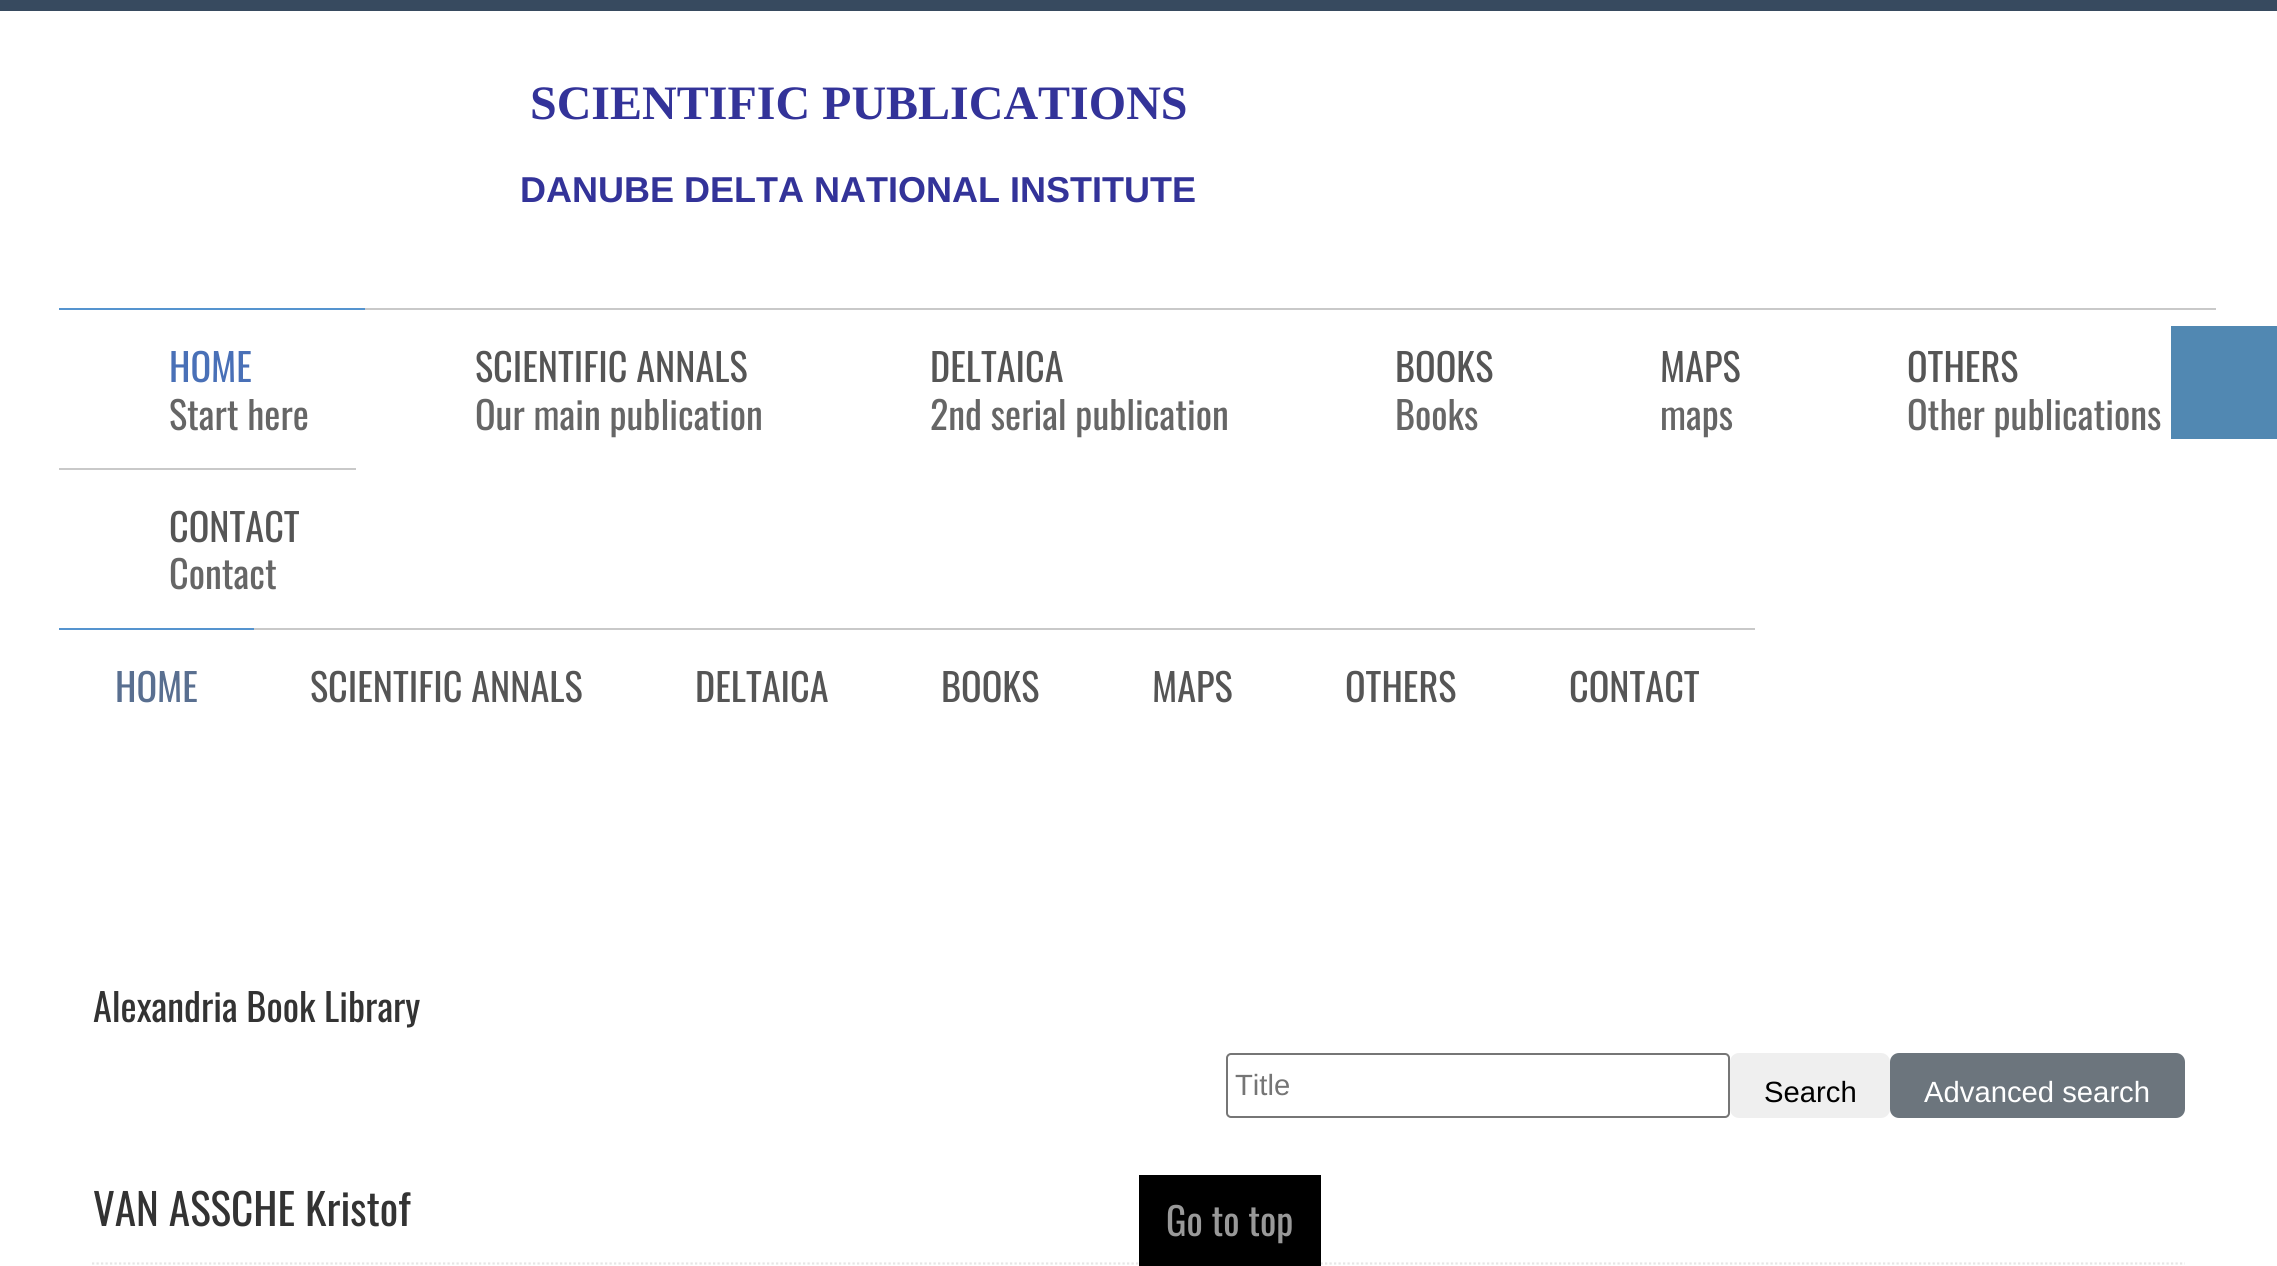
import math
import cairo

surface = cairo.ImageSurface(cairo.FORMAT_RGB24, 2277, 1266)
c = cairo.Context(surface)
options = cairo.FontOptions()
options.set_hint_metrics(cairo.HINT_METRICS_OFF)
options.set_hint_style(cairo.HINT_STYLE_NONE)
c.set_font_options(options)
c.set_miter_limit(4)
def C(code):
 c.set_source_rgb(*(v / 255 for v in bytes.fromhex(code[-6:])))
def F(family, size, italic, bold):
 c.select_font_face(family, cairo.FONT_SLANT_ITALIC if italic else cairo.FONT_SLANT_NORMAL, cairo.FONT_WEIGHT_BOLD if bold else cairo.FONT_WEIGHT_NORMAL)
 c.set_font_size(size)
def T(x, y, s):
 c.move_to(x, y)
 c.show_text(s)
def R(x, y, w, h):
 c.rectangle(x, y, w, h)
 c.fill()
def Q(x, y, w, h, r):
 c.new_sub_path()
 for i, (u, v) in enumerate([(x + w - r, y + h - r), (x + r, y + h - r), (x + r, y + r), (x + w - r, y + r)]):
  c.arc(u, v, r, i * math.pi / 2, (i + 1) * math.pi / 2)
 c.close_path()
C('ffffff')
c.paint()
C('374a5f')
R(0,0,2277,11)
F('Liberation Serif',48,0,1)
C('333399')
T(530,119,'SCIENTIFIC PUBLICATIONS')
F('Liberation Sans',36,0,1)
T(520,202,'DANUBE DELTA NATIONAL INSTITUTE')
C('5594cf')
R(59,308,306,2)
F('Oswald',38.25,0,0)
C('4970b7')
T(169,382,'HOME')
C('666666')
T(169,430,'Start here')
C('c9c9c9')
R(365,308,1851,2)
C('555555')
T(475,382,'SCIENTIFIC ANNALS')
C('666666')
T(475,430,'Our main publication')
C('555555')
T(930,382,'DELTAICA')
C('666666')
T(930,430,'2nd serial publication')
C('555555')
T(1395,382,'BOOKS')
C('666666')
T(1395,430,'Books')
C('555555')
T(1660,382,'MAPS')
C('666666')
T(1660,430,'maps')
C('555555')
T(1907,382,'OTHERS')
C('666666')
T(1907,430,'Other publications')
C('c9c9c9')
R(59,468,297,2)
C('555555')
T(169,542,'CONTACT')
C('666666')
T(169,589,'Contact')
C('5594cf')
R(59,628,195,2)
C('596f90')
T(115,702,'HOME')
C('c9c9c9')
R(254,628,1501,2)
C('555555')
T(310,702,'SCIENTIFIC ANNALS')
T(695,702,'DELTAICA')
T(941,702,'BOOKS')
T(1152,702,'MAPS')
T(1345,702,'OTHERS')
T(1569,702,'CONTACT')
C('5188b2')
R(2171,326,106,113)
C('333333')
T(93,1022,'Alexandria Book Library')
Q(1227,1054,502,63,4)
C('767676')
c.stroke()
F('Liberation Sans',29.25,0,0)
C('757575')
T(1235,1095,'Title')
C('efefef')
Q(1730,1053,160,65,9)
c.fill()
C('000000')
T(1764,1102,'Search')
C('6c757d')
Q(1891,1054,293,63,8)
c.fill_preserve()
c.stroke()
C('ffffff')
T(1924,1102,'Advanced search')
F('Oswald',43.25,0,0)
C('333333')
T(93,1226,'VAN ASSCHE Kristof')
c.new_path()
c.move_to(92,1263.5)
c.line_to(2185,1263.5)
C('e6e6e6')
c.set_line_width(2.2)
c.set_dash([2.25,2.25])
c.stroke()
C('000000')
R(1139,1175,182,91)
F('Oswald',38.25,0,0)
C('999999')
T(1166,1236,'Go to top')
surface.write_to_png('o.png')
